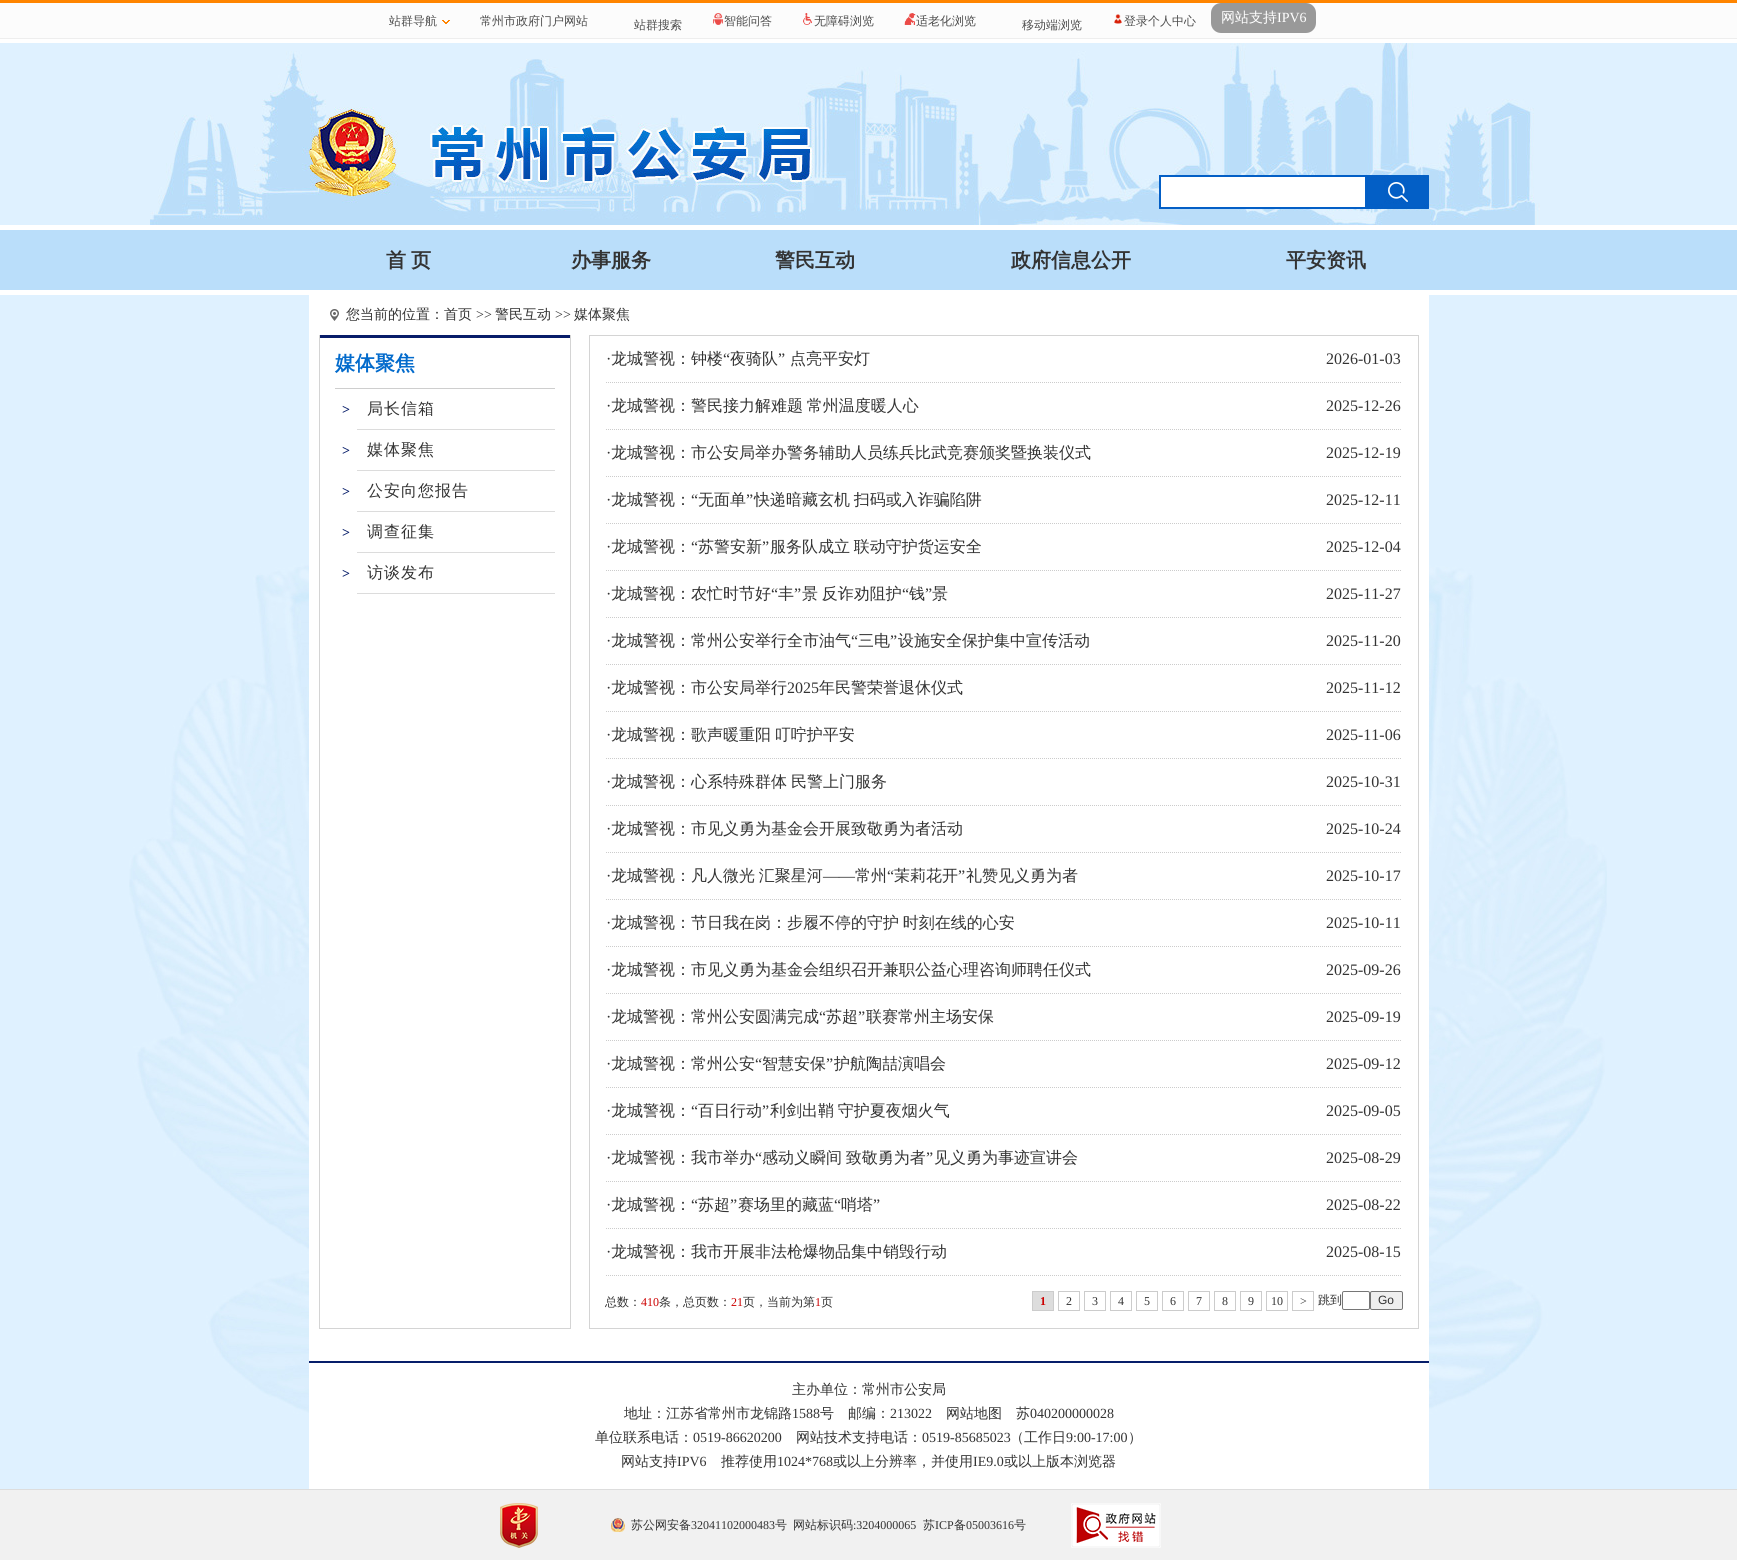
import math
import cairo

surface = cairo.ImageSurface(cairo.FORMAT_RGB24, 1737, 1563)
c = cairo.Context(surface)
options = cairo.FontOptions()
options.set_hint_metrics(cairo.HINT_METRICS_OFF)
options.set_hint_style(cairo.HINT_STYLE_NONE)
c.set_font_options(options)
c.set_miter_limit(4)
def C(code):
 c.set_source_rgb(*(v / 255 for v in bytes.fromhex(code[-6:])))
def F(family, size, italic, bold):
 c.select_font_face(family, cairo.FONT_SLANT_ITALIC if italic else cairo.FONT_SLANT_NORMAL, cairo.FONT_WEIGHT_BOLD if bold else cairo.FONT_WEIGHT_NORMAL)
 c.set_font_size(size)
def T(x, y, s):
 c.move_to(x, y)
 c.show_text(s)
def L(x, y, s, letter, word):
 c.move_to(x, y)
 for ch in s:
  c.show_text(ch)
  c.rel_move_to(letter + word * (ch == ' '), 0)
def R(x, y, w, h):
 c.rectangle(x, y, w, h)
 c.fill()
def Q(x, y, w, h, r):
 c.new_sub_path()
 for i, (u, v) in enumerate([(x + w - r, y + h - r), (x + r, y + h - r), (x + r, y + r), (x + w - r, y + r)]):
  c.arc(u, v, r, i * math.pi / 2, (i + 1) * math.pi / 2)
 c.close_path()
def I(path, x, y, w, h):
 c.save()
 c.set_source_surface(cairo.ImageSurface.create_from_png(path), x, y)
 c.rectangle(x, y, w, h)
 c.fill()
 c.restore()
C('ffffff')
c.paint()
C('fcfcfc')
R(0,3,1737,35)
C('ff8500')
R(0,0,1737,3)
C('eeeeee')
R(0,38,1737,1)
F('WenQuanYi Zen Hei Medium',12,0,0)
C('4c4c4c')
T(389,25,'站群导航')
I('1.png',442,20,8,4)
T(480,25,'常州市政府门户网站')
T(634,29,'站群搜索')
I('2.png',713,13,10,12)
T(724,25,'智能问答')
I('3.png',803,13,9,12)
T(814,25,'无障碍浏览')
I('4.png',904,13,12,12)
T(916,25,'适老化浏览')
T(1022,29,'移动端浏览')
I('5.png',1114,14,8,10)
T(1124,25,'登录个人中心')
C('999999')
Q(1211,3,105,30,10)
c.fill()
F('WenQuanYi Zen Hei Medium',14,0,0)
C('ffffff')
T(1221,22,'网站支持')
F('Liberation Serif',14,0,0)
T(1277,22,'IPV6')
C('dff1ff')
R(0,43,1737,182)
I('6.png',150,43,1390,182)
C('ffffff')
c.rectangle(1160,176,206,32)
c.fill_preserve()
C('035fc6')
c.stroke()
I('7.png',1367,175,62,34)
C('badefa')
R(0,230,1737,60)
F('WenQuanYi Zen Hei',20,0,1)
C('333333')
L(386,267,'首 页',0,-1)
T(571,267,'办事服务')
T(775,267,'警民互动')
T(1011,267,'政府信息公开')
T(1286,267,'平安资讯')
C('dff1ff')
R(0,295,1737,1194)
I('8.png',129,295,1478,1125)
I('9.png',330,309,9,12)
F('WenQuanYi Zen Hei Medium',14,0,0)
C('333333')
T(346,319,'您当前的位置：首页')
F('Liberation Serif',14,0,0)
T(476,319,'>>')
F('WenQuanYi Zen Hei Medium',14,0,0)
T(495,319,'警民互动')
F('Liberation Serif',14,0,0)
T(555,319,'>>')
F('WenQuanYi Zen Hei Medium',14,0,0)
T(574,319,'媒体聚焦')
C('d4d4d4')
R(570,335,1,994)
R(319,1328,252,1)
R(319,335,1,994)
C('071d69')
R(320,335,250,3)
C('cecece')
R(335,388,220,1)
F('WenQuanYi Zen Hei',20,0,1)
C('036bcc')
T(335,370,'媒体聚焦')
F('Liberation Serif',14,0,1)
C('071d69')
T(342,414,'>')
C('dcdcdc')
R(357,429,198,1)
F('WenQuanYi Zen Hei Medium',16,0,0)
C('333333')
L(367,414,'局长信箱',1,0)
F('Liberation Serif',14,0,1)
C('071d69')
T(342,455,'>')
C('dcdcdc')
R(357,470,198,1)
F('WenQuanYi Zen Hei Medium',16,0,0)
C('333333')
L(367,455,'媒体聚焦',1,0)
F('Liberation Serif',14,0,1)
C('071d69')
T(342,496,'>')
C('dcdcdc')
R(357,511,198,1)
F('WenQuanYi Zen Hei Medium',16,0,0)
C('333333')
L(367,496,'公安向您报告',1,0)
F('Liberation Serif',14,0,1)
C('071d69')
T(342,537,'>')
C('dcdcdc')
R(357,552,198,1)
F('WenQuanYi Zen Hei Medium',16,0,0)
C('333333')
L(367,537,'调查征集',1,0)
F('Liberation Serif',14,0,1)
C('071d69')
T(342,578,'>')
C('dcdcdc')
R(357,593,198,1)
F('WenQuanYi Zen Hei Medium',16,0,0)
C('333333')
L(367,578,'访谈发布',1,0)
c.rectangle(589.5,335.5,829,993)
C('d4d4d4')
c.set_line_width(1)
c.stroke()
c.new_path()
c.move_to(606,382.5)
c.line_to(1290,382.5)
C('cccccc')
c.set_dash([1,1])
c.stroke()
C('333333')
T(611,364,'龙城警视：钟楼')
F('Liberation Serif',16,0,0)
T(723,364,'“')
F('WenQuanYi Zen Hei Medium',16,0,0)
T(730,364,'夜骑队')
F('Liberation Serif',16,0,0)
T(778,364,'”')
F('WenQuanYi Zen Hei Medium',16,0,0)
T(790,364,'点亮平安灯')
F('Liberation Serif',16,0,0)
T(606,364,'·')
c.new_path()
c.move_to(1290,382.5)
c.line_to(1401,382.5)
C('cccccc')
c.stroke()
C('333333')
T(1326,364,'2026-01-03')
c.new_path()
c.move_to(606,429.5)
c.line_to(1290,429.5)
C('cccccc')
c.stroke()
C('333333')
T(606,411,'·')
F('WenQuanYi Zen Hei Medium',16,0,0)
L(611,411,'龙城警视：警民接力解难题 常州温度暖人心',0,-1)
c.new_path()
c.move_to(1290,429.5)
c.line_to(1401,429.5)
C('cccccc')
c.stroke()
F('Liberation Serif',16,0,0)
C('333333')
T(1326,411,'2025-12-26')
c.new_path()
c.move_to(606,476.5)
c.line_to(1290,476.5)
C('cccccc')
c.stroke()
C('333333')
T(606,458,'·')
F('WenQuanYi Zen Hei Medium',16,0,0)
T(611,458,'龙城警视：市公安局举办警务辅助人员练兵比武竞赛颁奖暨换装仪式')
c.new_path()
c.move_to(1290,476.5)
c.line_to(1401,476.5)
C('cccccc')
c.stroke()
F('Liberation Serif',16,0,0)
C('333333')
T(1326,458,'2025-12-19')
c.new_path()
c.move_to(606,523.5)
c.line_to(1290,523.5)
C('cccccc')
c.stroke()
F('WenQuanYi Zen Hei Medium',16,0,0)
C('333333')
T(611,505,'龙城警视：')
F('Liberation Serif',16,0,0)
T(691,505,'“')
F('WenQuanYi Zen Hei Medium',16,0,0)
T(698,505,'无面单')
F('Liberation Serif',16,0,0)
T(746,505,'”')
F('WenQuanYi Zen Hei Medium',16,0,0)
L(754,505,'快递暗藏玄机 扫码或入诈骗陷阱',0,-1)
F('Liberation Serif',16,0,0)
T(606,505,'·')
c.new_path()
c.move_to(1290,523.5)
c.line_to(1401,523.5)
C('cccccc')
c.stroke()
C('333333')
T(1326,505,'2025-12-11')
c.new_path()
c.move_to(606,570.5)
c.line_to(1290,570.5)
C('cccccc')
c.stroke()
F('WenQuanYi Zen Hei Medium',16,0,0)
C('333333')
T(611,552,'龙城警视：')
F('Liberation Serif',16,0,0)
T(691,552,'“')
F('WenQuanYi Zen Hei Medium',16,0,0)
T(698,552,'苏警安新')
F('Liberation Serif',16,0,0)
T(762,552,'”')
F('WenQuanYi Zen Hei Medium',16,0,0)
L(770,552,'服务队成立 联动守护货运安全',0,-1)
F('Liberation Serif',16,0,0)
T(606,552,'·')
c.new_path()
c.move_to(1290,570.5)
c.line_to(1401,570.5)
C('cccccc')
c.stroke()
C('333333')
T(1326,552,'2025-12-04')
c.new_path()
c.move_to(606,617.5)
c.line_to(1290,617.5)
C('cccccc')
c.stroke()
F('WenQuanYi Zen Hei Medium',16,0,0)
C('333333')
T(611,599,'龙城警视：农忙时节好')
F('Liberation Serif',16,0,0)
T(771,599,'“')
F('WenQuanYi Zen Hei Medium',16,0,0)
T(778,599,'丰')
F('Liberation Serif',16,0,0)
T(794,599,'”')
F('WenQuanYi Zen Hei Medium',16,0,0)
L(802,599,'景 反诈劝阻护',0,-1)
F('Liberation Serif',16,0,0)
T(902,599,'“')
F('WenQuanYi Zen Hei Medium',16,0,0)
T(909,599,'钱')
F('Liberation Serif',16,0,0)
T(925,599,'”')
F('WenQuanYi Zen Hei Medium',16,0,0)
T(932,599,'景')
F('Liberation Serif',16,0,0)
T(606,599,'·')
c.new_path()
c.move_to(1290,617.5)
c.line_to(1401,617.5)
C('cccccc')
c.stroke()
C('333333')
T(1326,599,'2025-11-27')
c.new_path()
c.move_to(606,664.5)
c.line_to(1290,664.5)
C('cccccc')
c.stroke()
F('WenQuanYi Zen Hei Medium',16,0,0)
C('333333')
T(611,646,'龙城警视：常州公安举行全市油气')
F('Liberation Serif',16,0,0)
T(851,646,'“')
F('WenQuanYi Zen Hei Medium',16,0,0)
T(858,646,'三电')
F('Liberation Serif',16,0,0)
T(890,646,'”')
F('WenQuanYi Zen Hei Medium',16,0,0)
T(898,646,'设施安全保护集中宣传活动')
F('Liberation Serif',16,0,0)
T(606,646,'·')
c.new_path()
c.move_to(1290,664.5)
c.line_to(1401,664.5)
C('cccccc')
c.stroke()
C('333333')
T(1326,646,'2025-11-20')
c.new_path()
c.move_to(606,711.5)
c.line_to(1290,711.5)
C('cccccc')
c.stroke()
C('333333')
T(606,693,'·')
F('WenQuanYi Zen Hei Medium',16,0,0)
T(611,693,'龙城警视：市公安局举行')
F('Liberation Serif',16,0,0)
T(787,693,'2025')
F('WenQuanYi Zen Hei Medium',16,0,0)
T(819,693,'年民警荣誉退休仪式')
c.new_path()
c.move_to(1290,711.5)
c.line_to(1401,711.5)
C('cccccc')
c.stroke()
F('Liberation Serif',16,0,0)
C('333333')
T(1326,693,'2025-11-12')
c.new_path()
c.move_to(606,758.5)
c.line_to(1290,758.5)
C('cccccc')
c.stroke()
C('333333')
T(606,740,'·')
F('WenQuanYi Zen Hei Medium',16,0,0)
L(611,740,'龙城警视：歌声暖重阳 叮咛护平安',0,-1)
c.new_path()
c.move_to(1290,758.5)
c.line_to(1401,758.5)
C('cccccc')
c.stroke()
F('Liberation Serif',16,0,0)
C('333333')
T(1326,740,'2025-11-06')
c.new_path()
c.move_to(606,805.5)
c.line_to(1290,805.5)
C('cccccc')
c.stroke()
C('333333')
T(606,787,'·')
F('WenQuanYi Zen Hei Medium',16,0,0)
T(611,787,'龙城警视：心系特殊群体')
T(791,787,'民警上门服务')
c.new_path()
c.move_to(1290,805.5)
c.line_to(1401,805.5)
C('cccccc')
c.stroke()
F('Liberation Serif',16,0,0)
C('333333')
T(1326,787,'2025-10-31')
c.new_path()
c.move_to(606,852.5)
c.line_to(1290,852.5)
C('cccccc')
c.stroke()
C('333333')
T(606,834,'·')
F('WenQuanYi Zen Hei Medium',16,0,0)
T(611,834,'龙城警视：市见义勇为基金会开展致敬勇为者活动')
c.new_path()
c.move_to(1290,852.5)
c.line_to(1401,852.5)
C('cccccc')
c.stroke()
F('Liberation Serif',16,0,0)
C('333333')
T(1326,834,'2025-10-24')
c.new_path()
c.move_to(606,899.5)
c.line_to(1290,899.5)
C('cccccc')
c.stroke()
F('WenQuanYi Zen Hei Medium',16,0,0)
C('333333')
L(611,881,'龙城警视：凡人微光 汇聚星河',0,-1)
F('Liberation Serif',16,0,0)
T(823,881,'——')
F('WenQuanYi Zen Hei Medium',16,0,0)
T(855,881,'常州')
F('Liberation Serif',16,0,0)
T(887,881,'“')
F('WenQuanYi Zen Hei Medium',16,0,0)
T(894,881,'茉莉花开')
F('Liberation Serif',16,0,0)
T(958,881,'”')
F('WenQuanYi Zen Hei Medium',16,0,0)
T(966,881,'礼赞见义勇为者')
F('Liberation Serif',16,0,0)
T(606,881,'·')
c.new_path()
c.move_to(1290,899.5)
c.line_to(1401,899.5)
C('cccccc')
c.stroke()
C('333333')
T(1326,881,'2025-10-17')
c.new_path()
c.move_to(606,946.5)
c.line_to(1290,946.5)
C('cccccc')
c.stroke()
C('333333')
T(606,928,'·')
F('WenQuanYi Zen Hei Medium',16,0,0)
L(611,928,'龙城警视：节日我在岗：步履不停的守护 时刻在线的心安',0,-1)
c.new_path()
c.move_to(1290,946.5)
c.line_to(1401,946.5)
C('cccccc')
c.stroke()
F('Liberation Serif',16,0,0)
C('333333')
T(1326,928,'2025-10-11')
c.new_path()
c.move_to(606,993.5)
c.line_to(1290,993.5)
C('cccccc')
c.stroke()
C('333333')
T(606,975,'·')
F('WenQuanYi Zen Hei Medium',16,0,0)
T(611,975,'龙城警视：市见义勇为基金会组织召开兼职公益心理咨询师聘任仪式')
c.new_path()
c.move_to(1290,993.5)
c.line_to(1401,993.5)
C('cccccc')
c.stroke()
F('Liberation Serif',16,0,0)
C('333333')
T(1326,975,'2025-09-26')
c.new_path()
c.move_to(606,1040.5)
c.line_to(1290,1040.5)
C('cccccc')
c.stroke()
F('WenQuanYi Zen Hei Medium',16,0,0)
C('333333')
T(611,1022,'龙城警视：常州公安圆满完成')
F('Liberation Serif',16,0,0)
T(819,1022,'“')
F('WenQuanYi Zen Hei Medium',16,0,0)
T(826,1022,'苏超')
F('Liberation Serif',16,0,0)
T(858,1022,'”')
F('WenQuanYi Zen Hei Medium',16,0,0)
T(866,1022,'联赛常州主场安保')
F('Liberation Serif',16,0,0)
T(606,1022,'·')
c.new_path()
c.move_to(1290,1040.5)
c.line_to(1401,1040.5)
C('cccccc')
c.stroke()
C('333333')
T(1326,1022,'2025-09-19')
c.new_path()
c.move_to(606,1087.5)
c.line_to(1290,1087.5)
C('cccccc')
c.stroke()
F('WenQuanYi Zen Hei Medium',16,0,0)
C('333333')
T(611,1069,'龙城警视：常州公安')
F('Liberation Serif',16,0,0)
T(755,1069,'“')
F('WenQuanYi Zen Hei Medium',16,0,0)
T(762,1069,'智慧安保')
F('Liberation Serif',16,0,0)
T(826,1069,'”')
F('WenQuanYi Zen Hei Medium',16,0,0)
T(834,1069,'护航陶喆演唱会')
F('Liberation Serif',16,0,0)
T(606,1069,'·')
c.new_path()
c.move_to(1290,1087.5)
c.line_to(1401,1087.5)
C('cccccc')
c.stroke()
C('333333')
T(1326,1069,'2025-09-12')
c.new_path()
c.move_to(606,1134.5)
c.line_to(1290,1134.5)
C('cccccc')
c.stroke()
F('WenQuanYi Zen Hei Medium',16,0,0)
C('333333')
T(611,1116,'龙城警视：')
F('Liberation Serif',16,0,0)
T(691,1116,'“')
F('WenQuanYi Zen Hei Medium',16,0,0)
T(698,1116,'百日行动')
F('Liberation Serif',16,0,0)
T(762,1116,'”')
F('WenQuanYi Zen Hei Medium',16,0,0)
L(770,1116,'利剑出鞘 守护夏夜烟火气',0,-1)
F('Liberation Serif',16,0,0)
T(606,1116,'·')
c.new_path()
c.move_to(1290,1134.5)
c.line_to(1401,1134.5)
C('cccccc')
c.stroke()
C('333333')
T(1326,1116,'2025-09-05')
c.new_path()
c.move_to(606,1181.5)
c.line_to(1290,1181.5)
C('cccccc')
c.stroke()
F('WenQuanYi Zen Hei Medium',16,0,0)
C('333333')
T(611,1163,'龙城警视：我市举办')
F('Liberation Serif',16,0,0)
T(755,1163,'“')
F('WenQuanYi Zen Hei Medium',16,0,0)
L(762,1163,'感动义瞬间 致敬勇为者',0,-1)
F('Liberation Serif',16,0,0)
T(926,1163,'”')
F('WenQuanYi Zen Hei Medium',16,0,0)
T(934,1163,'见义勇为事迹宣讲会')
F('Liberation Serif',16,0,0)
T(606,1163,'·')
c.new_path()
c.move_to(1290,1181.5)
c.line_to(1401,1181.5)
C('cccccc')
c.stroke()
C('333333')
T(1326,1163,'2025-08-29')
c.new_path()
c.move_to(606,1228.5)
c.line_to(1290,1228.5)
C('cccccc')
c.stroke()
F('WenQuanYi Zen Hei Medium',16,0,0)
C('333333')
T(611,1210,'龙城警视：')
F('Liberation Serif',16,0,0)
T(691,1210,'“')
F('WenQuanYi Zen Hei Medium',16,0,0)
T(698,1210,'苏超')
F('Liberation Serif',16,0,0)
T(730,1210,'”')
F('WenQuanYi Zen Hei Medium',16,0,0)
T(738,1210,'赛场里的藏蓝')
F('Liberation Serif',16,0,0)
T(834,1210,'“')
F('WenQuanYi Zen Hei Medium',16,0,0)
T(841,1210,'哨塔')
F('Liberation Serif',16,0,0)
T(873,1210,'”')
T(606,1210,'·')
c.new_path()
c.move_to(1290,1228.5)
c.line_to(1401,1228.5)
C('cccccc')
c.stroke()
C('333333')
T(1326,1210,'2025-08-22')
c.new_path()
c.move_to(606,1275.5)
c.line_to(1290,1275.5)
C('cccccc')
c.stroke()
C('333333')
T(606,1257,'·')
F('WenQuanYi Zen Hei Medium',16,0,0)
T(611,1257,'龙城警视：我市开展非法枪爆物品集中销毁行动')
c.new_path()
c.move_to(1290,1275.5)
c.line_to(1401,1275.5)
C('cccccc')
c.stroke()
F('Liberation Serif',16,0,0)
C('333333')
T(1326,1257,'2025-08-15')
F('WenQuanYi Zen Hei Medium',12,0,0)
T(605,1306,'总数：')
F('Liberation Serif',12,0,0)
C('cc0000')
T(641,1306,'410')
F('WenQuanYi Zen Hei Medium',12,0,0)
C('333333')
T(659,1306,'条，总页数：')
F('Liberation Serif',12,0,0)
C('cc0000')
T(731,1306,'21')
F('WenQuanYi Zen Hei Medium',12,0,0)
C('333333')
T(743,1306,'页，当前为第')
F('Liberation Serif',12,0,0)
C('cc0000')
T(815,1306,'1')
F('WenQuanYi Zen Hei Medium',12,0,0)
C('333333')
T(821,1306,'页')
C('dddddd')
c.rectangle(1032.5,1291.5,21,19)
c.fill_preserve()
C('cccccc')
c.set_dash([])
c.stroke()
F('Liberation Serif',12,0,1)
C('cc0000')
T(1040,1305,'1')
c.rectangle(1058.5,1291.5,21,19)
C('cccccc')
c.stroke()
F('Liberation Serif',12,0,0)
C('333333')
T(1066,1305,'2')
c.rectangle(1084.5,1291.5,21,19)
C('cccccc')
c.stroke()
C('333333')
T(1092,1305,'3')
c.rectangle(1110.5,1291.5,21,19)
C('cccccc')
c.stroke()
C('333333')
T(1118,1305,'4')
c.rectangle(1136.5,1291.5,21,19)
C('cccccc')
c.stroke()
C('333333')
T(1144,1305,'5')
c.rectangle(1162.5,1291.5,21,19)
C('cccccc')
c.stroke()
C('333333')
T(1170,1305,'6')
c.rectangle(1188.5,1291.5,21,19)
C('cccccc')
c.stroke()
C('333333')
T(1196,1305,'7')
c.rectangle(1214.5,1291.5,21,19)
C('cccccc')
c.stroke()
C('333333')
T(1222,1305,'8')
c.rectangle(1240.5,1291.5,21,19)
C('cccccc')
c.stroke()
C('333333')
T(1248,1305,'9')
c.rectangle(1266.5,1291.5,21,19)
C('cccccc')
c.stroke()
C('333333')
T(1271,1305,'10')
c.rectangle(1292.5,1291.5,21,19)
C('cccccc')
c.stroke()
C('333333')
T(1300,1305,'>')
F('WenQuanYi Zen Hei Medium',12,0,0)
T(1318,1304,'跳到')
Q(1342.5,1291.5,27,18,1.5)
C('767676')
c.stroke()
C('efefef')
Q(1370.5,1291.5,32,18,1.5)
c.fill_preserve()
C('767676')
c.stroke()
F('Liberation Sans',12,0,0)
C('333333')
T(1378,1304,'Go')
C('071e6a')
R(309,1361,1120,2)
C('ffffff')
R(309,1420,1120,69)
F('WenQuanYi Zen Hei Medium',14,0,0)
C('333333')
T(792,1394,'主办单位：常州市公安局')
T(624,1418,'地址：江苏省常州市龙锦路')
F('Liberation Serif',14,0,0)
T(792,1418,'1588')
F('WenQuanYi Zen Hei Medium',14,0,0)
T(820,1418,'号')
T(848,1418,'邮编：')
F('Liberation Serif',14,0,0)
T(890,1418,'213022')
F('WenQuanYi Zen Hei Medium',14,0,0)
T(946,1418,'网站地图')
T(1016,1418,'苏')
F('Liberation Serif',14,0,0)
T(1030,1418,'040200000028')
F('WenQuanYi Zen Hei Medium',14,0,0)
T(595,1442,'单位联系电话：')
F('Liberation Serif',14,0,0)
T(693,1442,'0519-86620200')
F('WenQuanYi Zen Hei Medium',14,0,0)
T(796,1442,'网站技术支持电话：')
F('Liberation Serif',14,0,0)
T(922,1442,'0519-85685023')
F('WenQuanYi Zen Hei Medium',14,0,0)
T(1010,1442,'（工作日')
F('Liberation Serif',14,0,0)
T(1066,1442,'9:00-17:00')
F('WenQuanYi Zen Hei Medium',14,0,0)
T(1128,1442,'）')
T(621,1466,'网站支持')
F('Liberation Serif',14,0,0)
T(677,1466,'IPV6')
F('WenQuanYi Zen Hei Medium',14,0,0)
T(721,1466,'推荐使用')
F('Liberation Serif',14,0,0)
T(777,1466,'1024*768')
F('WenQuanYi Zen Hei Medium',14,0,0)
T(833,1466,'或以上分辨率，并使用')
F('Liberation Serif',14,0,0)
T(973,1466,'IE9.0')
F('WenQuanYi Zen Hei Medium',14,0,0)
T(1004,1466,'或以上版本浏览器')
C('dddddd')
R(0,1489,1737,1)
C('f1f1f1')
R(0,1490,1737,70)
I('10.png',500,1503,38,45)
I('11.png',611,1518,14,14)
F('WenQuanYi Zen Hei Medium',12,0,0)
C('333333')
T(631,1529,'苏公网安备')
F('Liberation Serif',12,0,0)
T(691,1529,'32041102000483')
F('WenQuanYi Zen Hei Medium',12,0,0)
T(775,1529,'号')
T(793,1529,'网站标识码')
F('Liberation Serif',12,0,0)
T(853,1529,':3204000065')
F('WenQuanYi Zen Hei Medium',12,0,0)
T(923,1529,'苏')
F('Liberation Serif',12,0,0)
T(935,1529,'ICP')
F('WenQuanYi Zen Hei Medium',12,0,0)
T(954,1529,'备')
F('Liberation Serif',12,0,0)
T(966,1529,'05003616')
F('WenQuanYi Zen Hei Medium',12,0,0)
T(1014,1529,'号')
I('12.png',1071,1503,90,45)
surface.write_to_png('o.png')
